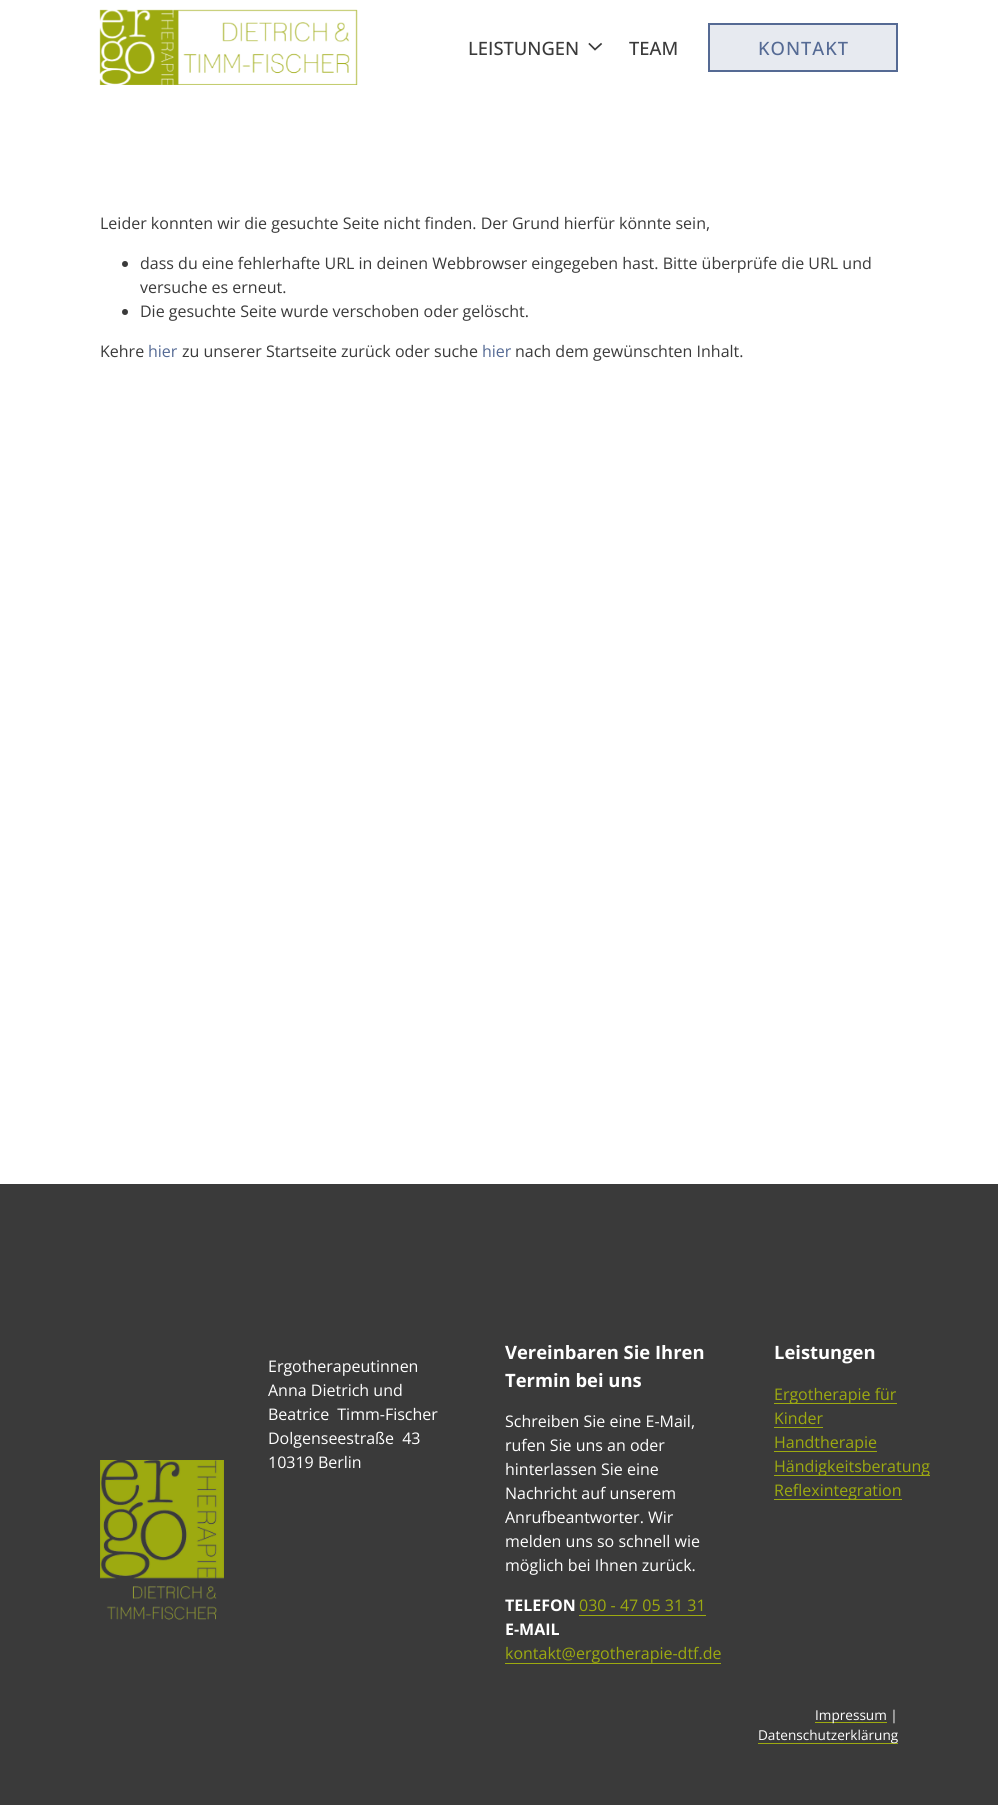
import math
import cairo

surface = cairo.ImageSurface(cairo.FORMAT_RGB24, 998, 1805)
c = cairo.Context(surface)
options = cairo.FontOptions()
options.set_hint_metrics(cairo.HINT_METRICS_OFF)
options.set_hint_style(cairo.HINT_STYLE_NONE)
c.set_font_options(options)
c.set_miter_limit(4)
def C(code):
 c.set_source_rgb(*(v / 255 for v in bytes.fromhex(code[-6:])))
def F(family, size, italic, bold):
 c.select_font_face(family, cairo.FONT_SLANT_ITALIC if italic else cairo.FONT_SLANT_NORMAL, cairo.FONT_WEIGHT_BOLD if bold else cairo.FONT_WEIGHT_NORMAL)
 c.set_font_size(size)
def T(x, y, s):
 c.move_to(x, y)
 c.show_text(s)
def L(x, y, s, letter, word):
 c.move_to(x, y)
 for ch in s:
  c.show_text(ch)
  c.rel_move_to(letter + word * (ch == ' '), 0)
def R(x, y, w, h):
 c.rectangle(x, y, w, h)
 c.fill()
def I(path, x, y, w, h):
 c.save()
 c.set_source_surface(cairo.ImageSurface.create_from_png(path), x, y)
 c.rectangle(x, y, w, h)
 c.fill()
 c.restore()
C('ffffff')
c.paint()
I('1.png',99,9,259,76)
F('Open Sans Medium',18.4,0,0)
C('3a3a3a')
T(468,55,'LEISTUNGEN')
c.new_path()
c.move_to(601,44)
c.line_to(595,49.5)
c.line_to(589.5,44)
c.set_line_width(1.7)
c.set_line_cap(cairo.LINE_CAP_SQUARE)
c.stroke()
T(629,55,'TEAM')
C('e7eaf0')
c.rectangle(709,24,188,47)
c.fill_preserve()
C('556a94')
c.set_line_width(2)
c.set_line_cap(cairo.LINE_CAP_BUTT)
c.stroke()
L(758,55,'KONTAKT',1,0)
F('Open Sans',16,0,0)
C('3a3a3a')
T(100,229,'Leider konnten wir die gesuchte Seite nicht finden. Der Grund hierfür könnte sein,')
c.new_path()
c.arc(125,264,3,0,2 * math.pi)
c.fill()
T(140,269,'dass du eine fehlerhafte URL in deinen Webbrowser eingegeben hast. Bitte überprüfe die URL und')
T(140,293,'versuche es erneut.')
c.new_path()
c.arc(125,312,3,0,2 * math.pi)
c.fill()
T(140,317,'Die gesuchte Seite wurde verschoben oder gelöscht.')
T(100,357,'Kehre')
C('556a94')
T(148,357,'hier')
C('3a3a3a')
T(182,357,'zu unserer Startseite zurück oder suche')
C('556a94')
T(482,357,'hier')
C('3a3a3a')
T(515,357,'nach dem gewünschten Inhalt.')
R(0,1184,998,621)
C('ffffff')
T(268,1372,'Ergotherapeutinnen')
T(268,1396,'Anna Dietrich und')
L(268,1420,'Beatrice Timm-Fischer',0,4)
L(268,1444,'Dolgenseestraße 43',0,4)
T(268,1468,'10319 Berlin')
F('Open Sans',18.4,0,1)
T(505,1359,'Vereinbaren Sie Ihren')
T(505,1387,'Termin bei uns')
F('Open Sans',16,0,0)
T(505,1427,'Schreiben Sie eine E-Mail,')
T(505,1451,'rufen Sie uns an oder')
T(505,1475,'hinterlassen Sie eine')
T(505,1499,'Nachricht auf unserem')
T(505,1523,'Anrufbeantworter. Wir')
T(505,1547,'melden uns so schnell wie')
T(505,1571,'möglich bei Ihnen zurück.')
F('Open Sans',16,0,1)
T(505,1611,'TELEFON')
F('Open Sans',16,0,0)
C('9daa10')
T(579,1611,'030 - 47 05 31 31')
R(579,1615,127,1)
F('Open Sans',16,0,1)
C('ffffff')
T(505,1635,'E-MAIL')
F('Open Sans',16,0,0)
C('9daa10')
T(505,1659,'kontakt@ergotherapie-dtf.de')
R(505,1663,216,1)
F('Open Sans',18.4,0,1)
C('ffffff')
T(774,1359,'Leistungen')
C('9daa10')
R(774,1403,123,1)
F('Open Sans',16,0,0)
T(774,1400,'Ergotherapie für')
T(774,1424,'Kinder')
R(774,1427,49,1)
R(774,1451,103,1)
T(774,1448,'Handtherapie')
R(774,1475,156,1)
T(774,1472,'Händigkeitsberatung')
R(774,1499,128,1)
T(774,1496,'Reflexintegration')
I('2.png',100,1460,124,160)
R(815,1722,72,1)
F('Open Sans',13.6,0,0)
C('ffffff')
T(815,1720,'Impressum |')
C('9daa10')
R(758,1743,140,1)
C('ffffff')
T(758,1740,'Datenschutzerklärung')
surface.write_to_png('o.png')
